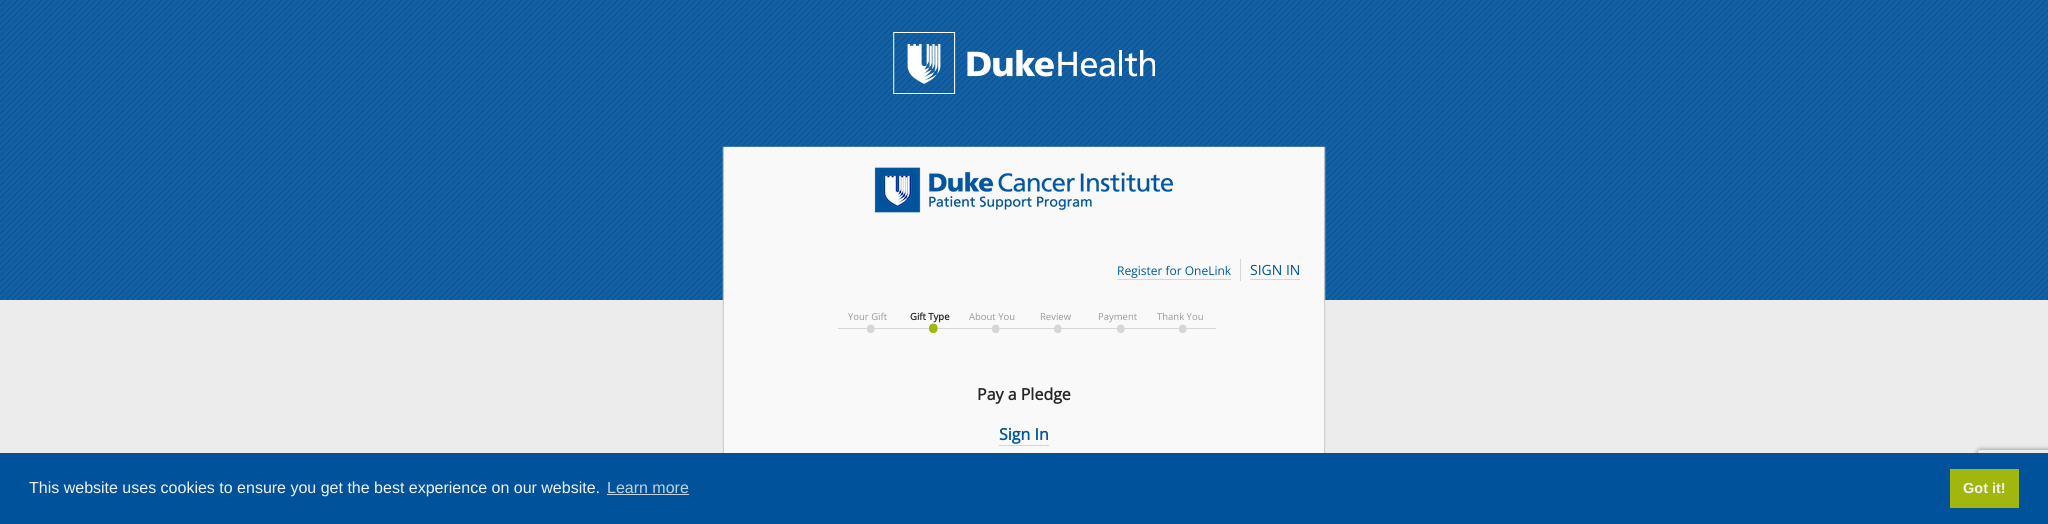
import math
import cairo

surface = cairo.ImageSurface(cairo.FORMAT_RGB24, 2048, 524)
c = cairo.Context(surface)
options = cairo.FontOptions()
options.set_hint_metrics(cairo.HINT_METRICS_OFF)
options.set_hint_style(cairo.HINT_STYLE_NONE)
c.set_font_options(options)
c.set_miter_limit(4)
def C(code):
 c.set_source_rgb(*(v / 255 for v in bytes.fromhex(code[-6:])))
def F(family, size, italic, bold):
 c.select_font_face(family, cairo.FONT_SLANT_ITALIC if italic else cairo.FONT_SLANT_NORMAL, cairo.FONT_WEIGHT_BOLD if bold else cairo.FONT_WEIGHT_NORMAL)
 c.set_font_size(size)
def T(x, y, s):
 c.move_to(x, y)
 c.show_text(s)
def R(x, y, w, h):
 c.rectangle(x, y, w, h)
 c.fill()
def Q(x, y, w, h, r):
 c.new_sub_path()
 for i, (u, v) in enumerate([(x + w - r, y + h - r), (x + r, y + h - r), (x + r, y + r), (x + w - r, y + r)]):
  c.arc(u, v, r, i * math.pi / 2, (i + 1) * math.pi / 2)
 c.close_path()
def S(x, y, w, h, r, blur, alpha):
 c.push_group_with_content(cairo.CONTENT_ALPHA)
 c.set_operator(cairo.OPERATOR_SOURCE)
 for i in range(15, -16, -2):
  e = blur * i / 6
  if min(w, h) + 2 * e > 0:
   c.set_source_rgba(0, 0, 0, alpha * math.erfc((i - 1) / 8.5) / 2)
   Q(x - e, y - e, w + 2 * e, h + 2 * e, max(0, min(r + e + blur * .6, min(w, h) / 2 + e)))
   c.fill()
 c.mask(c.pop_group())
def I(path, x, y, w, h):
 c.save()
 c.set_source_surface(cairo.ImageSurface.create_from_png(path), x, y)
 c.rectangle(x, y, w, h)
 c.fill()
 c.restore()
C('ececec')
c.paint()
I('1.png',0,0,2048,300)
I('2.png',893,32,262,62)
C('cccccc')
S(723,147,602,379,0,.5,1)
C('f9f9f9')
R(724,147,600,306)
I('3.png',874,167,300,46)
F('Open Sans',12,0,0)
C('00569d')
T(1117,275,'Register for OneLink')
C('d6d6d6')
R(1117,279,114,1)
R(1240,259,1,22)
F('Open Sans',14,0,0)
C('00569d')
T(1250,275,'SIGN IN')
C('d6d6d6')
R(1250,279,50,1)
F('Open Sans',9.5,0,0)
C('999999')
T(848,320,'Your Gift')
C('d6d6d6')
R(838,328,378,1)
F('Open Sans',36,0,0)
T(864,342,'•')
F('Open Sans',9.5,0,1)
C('262626')
T(910,320,'Gift Type')
F('Open Sans',36,0,1)
C('a1b70d')
T(926,342,'•')
F('Open Sans',9.5,0,0)
C('999999')
T(969,320,'About You')
F('Open Sans',36,0,0)
C('d6d6d6')
T(989,342,'•')
F('Open Sans',9.5,0,0)
C('999999')
T(1040,320,'Review')
F('Open Sans',36,0,0)
C('d6d6d6')
T(1051,342,'•')
F('Open Sans',9.5,0,0)
C('999999')
T(1098,320,'Payment')
F('Open Sans',36,0,0)
C('d6d6d6')
T(1114,342,'•')
F('Open Sans',9.5,0,0)
C('999999')
T(1157,320,'Thank You')
F('Open Sans',36,0,0)
C('d6d6d6')
T(1176,342,'•')
F('Open Sans',16,0,1)
C('262626')
T(977,400,'Pay a Pledge')
C('00569d')
T(999,440,'Sign In')
C('d6d6d6')
R(999,445,50,1)
c.save()
c.set_fill_rule(cairo.FILL_RULE_EVEN_ODD)
c.new_path()
c.move_to(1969,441)
c.line_to(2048,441)
c.line_to(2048,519)
c.line_to(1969,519)
c.close_path()
c.move_to(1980,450)
c.line_to(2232,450)
c.curve_to(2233,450,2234,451,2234,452)
c.line_to(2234,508)
c.curve_to(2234,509,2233,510,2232,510)
c.line_to(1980,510)
c.curve_to(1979,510,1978,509,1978,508)
c.line_to(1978,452)
c.curve_to(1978,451,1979,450,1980,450)
c.close_path()
c.clip()
C('808080')
S(1978,450,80,60,2,2.5,1)
c.restore()
C('00539b')
R(0,453,2048,71)
F('Liberation Sans',16,0,0)
C('f3f2f1')
T(29,493,'This website uses cookies to ensure you get the best experience on our website.')
C('c2d2e0')
T(607,493,'Learn more')
R(607,494,82,1)
C('a1b70d')
R(1950,469,69,39)
F('Liberation Sans',14.5,0,1)
C('f3f2f1')
T(1963,493,'Got it!')
surface.write_to_png('o.png')
